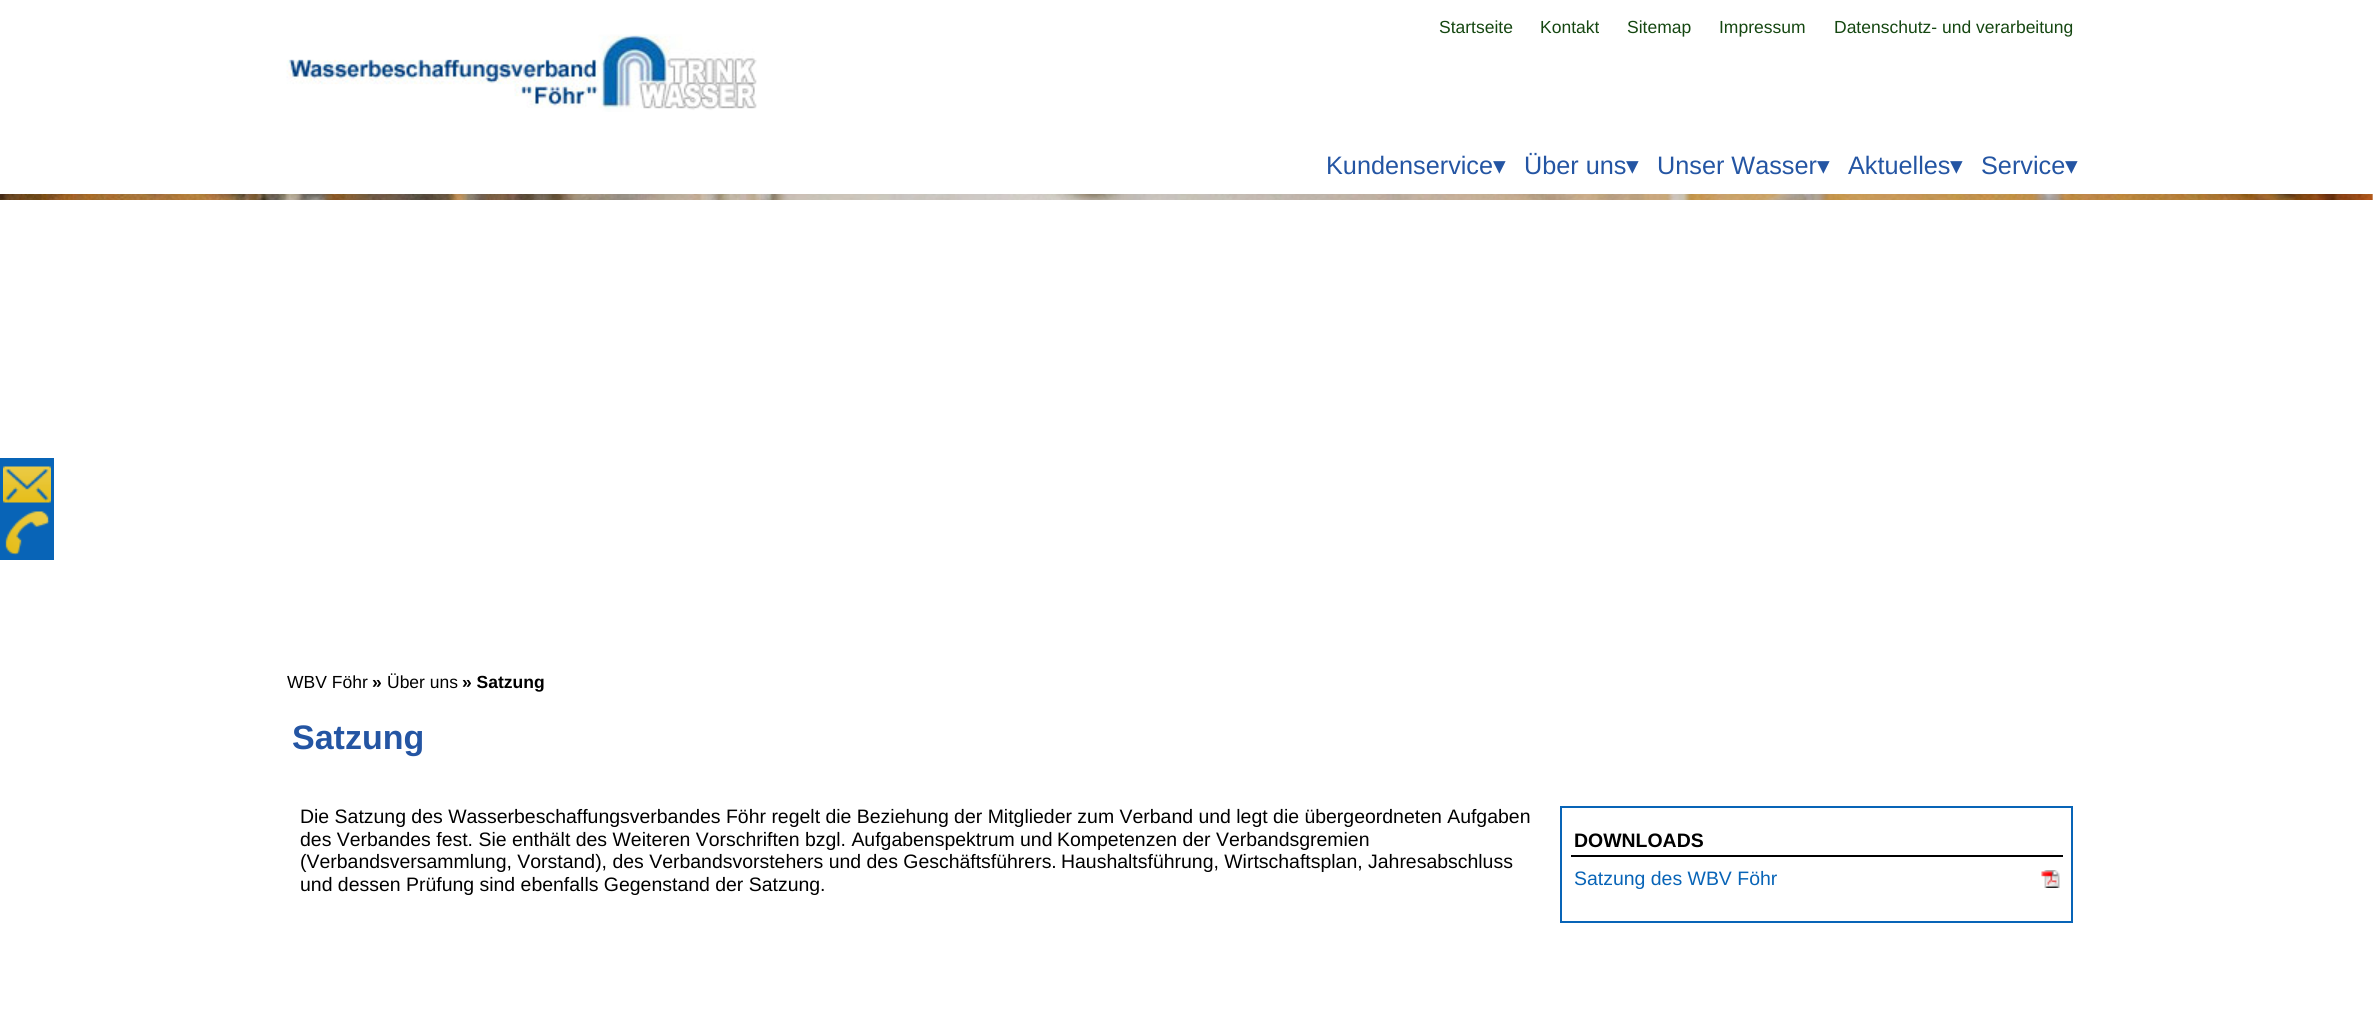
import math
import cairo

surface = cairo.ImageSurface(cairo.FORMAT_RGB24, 2373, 1018)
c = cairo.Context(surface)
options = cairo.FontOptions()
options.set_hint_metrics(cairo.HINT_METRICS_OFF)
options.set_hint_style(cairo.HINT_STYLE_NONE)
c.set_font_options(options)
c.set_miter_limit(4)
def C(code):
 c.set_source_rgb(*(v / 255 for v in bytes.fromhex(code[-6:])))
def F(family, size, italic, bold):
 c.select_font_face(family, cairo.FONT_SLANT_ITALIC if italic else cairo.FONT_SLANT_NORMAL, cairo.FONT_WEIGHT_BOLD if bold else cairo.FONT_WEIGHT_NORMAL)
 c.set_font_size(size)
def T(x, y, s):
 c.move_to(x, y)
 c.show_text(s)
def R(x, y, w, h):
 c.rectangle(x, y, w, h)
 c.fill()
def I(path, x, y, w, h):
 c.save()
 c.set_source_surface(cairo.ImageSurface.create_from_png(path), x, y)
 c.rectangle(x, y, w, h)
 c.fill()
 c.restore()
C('ffffff')
c.paint()
F('Liberation Sans',17.5,0,0)
C('154711')
T(1439,33,'Startseite')
T(1540,33,'Kontakt')
T(1627,33,'Sitemap')
T(1719,33,'Impressum')
T(1834,33,'Datenschutz- und verarbeitung')
I('1.png',286,34,471,78)
F('Liberation Sans',25.25,0,0)
C('2455a3')
T(1326,174,'Kundenservice')
F('DejaVu Sans',25.25,0,0)
T(1493,174,'▾')
F('Liberation Sans',25.25,0,0)
T(1524,174,'Über uns')
F('DejaVu Sans',25.25,0,0)
T(1626,174,'▾')
F('Liberation Sans',25.25,0,0)
T(1657,174,'Unser Wasser')
F('DejaVu Sans',25.25,0,0)
T(1817,174,'▾')
F('Liberation Sans',25.25,0,0)
T(1848,174,'Aktuelles')
F('DejaVu Sans',25.25,0,0)
T(1950,174,'▾')
F('Liberation Sans',25.25,0,0)
T(1981,174,'Service')
F('DejaVu Sans',25.25,0,0)
T(2065,174,'▾')
I('2.png',0,194,2373,6)
C('0864b7')
R(0,458,54,102)
I('3.png',3,466,48,37)
I('4.png',5,511,45,44)
F('Liberation Sans',17.5,0,0)
C('000000')
T(287,688,'WBV Föhr')
F('Liberation Sans',17.5,0,1)
T(372,688,'»')
F('Liberation Sans',17.5,0,0)
T(387,688,'Über uns')
F('Liberation Sans',17.5,0,1)
T(462,688,'» Satzung')
F('Liberation Sans',34,0,1)
C('2455a3')
T(292,749,'Satzung')
F('Liberation Sans',19.45,0,0)
C('000000')
T(300,823,'Die Satzung des Wasserbeschaffungsverbandes Föhr regelt die Beziehung der Mitglieder zum Verband und legt die übergeordneten Aufgaben')
T(300,846,'des Verbandes fest. Sie enthält des Weiteren Vorschriften bzgl. Aufgabenspektrum und')
T(1057,846,'Kompetenzen der Verbandsgremien')
T(300,868,'(Verbandsversammlung, Vorstand), des Verbandsvorstehers und des Geschäftsführers.')
T(1061,868,'Haushaltsführung, Wirtschaftsplan, Jahresabschluss')
T(300,891,'und dessen Prüfung sind ebenfalls Gegenstand der Satzung.')
c.rectangle(1561,807,511,115)
C('0864b7')
c.stroke()
C('000000')
R(1571,855,492,2)
F('Liberation Sans',19.45,0,1)
T(1574,847,'DOWNLOADS')
I('5.png',2041,870,19,18)
F('Liberation Sans',19.45,0,0)
C('0864b7')
T(1574,885,'Satzung des WBV Föhr')
surface.write_to_png('o.png')
